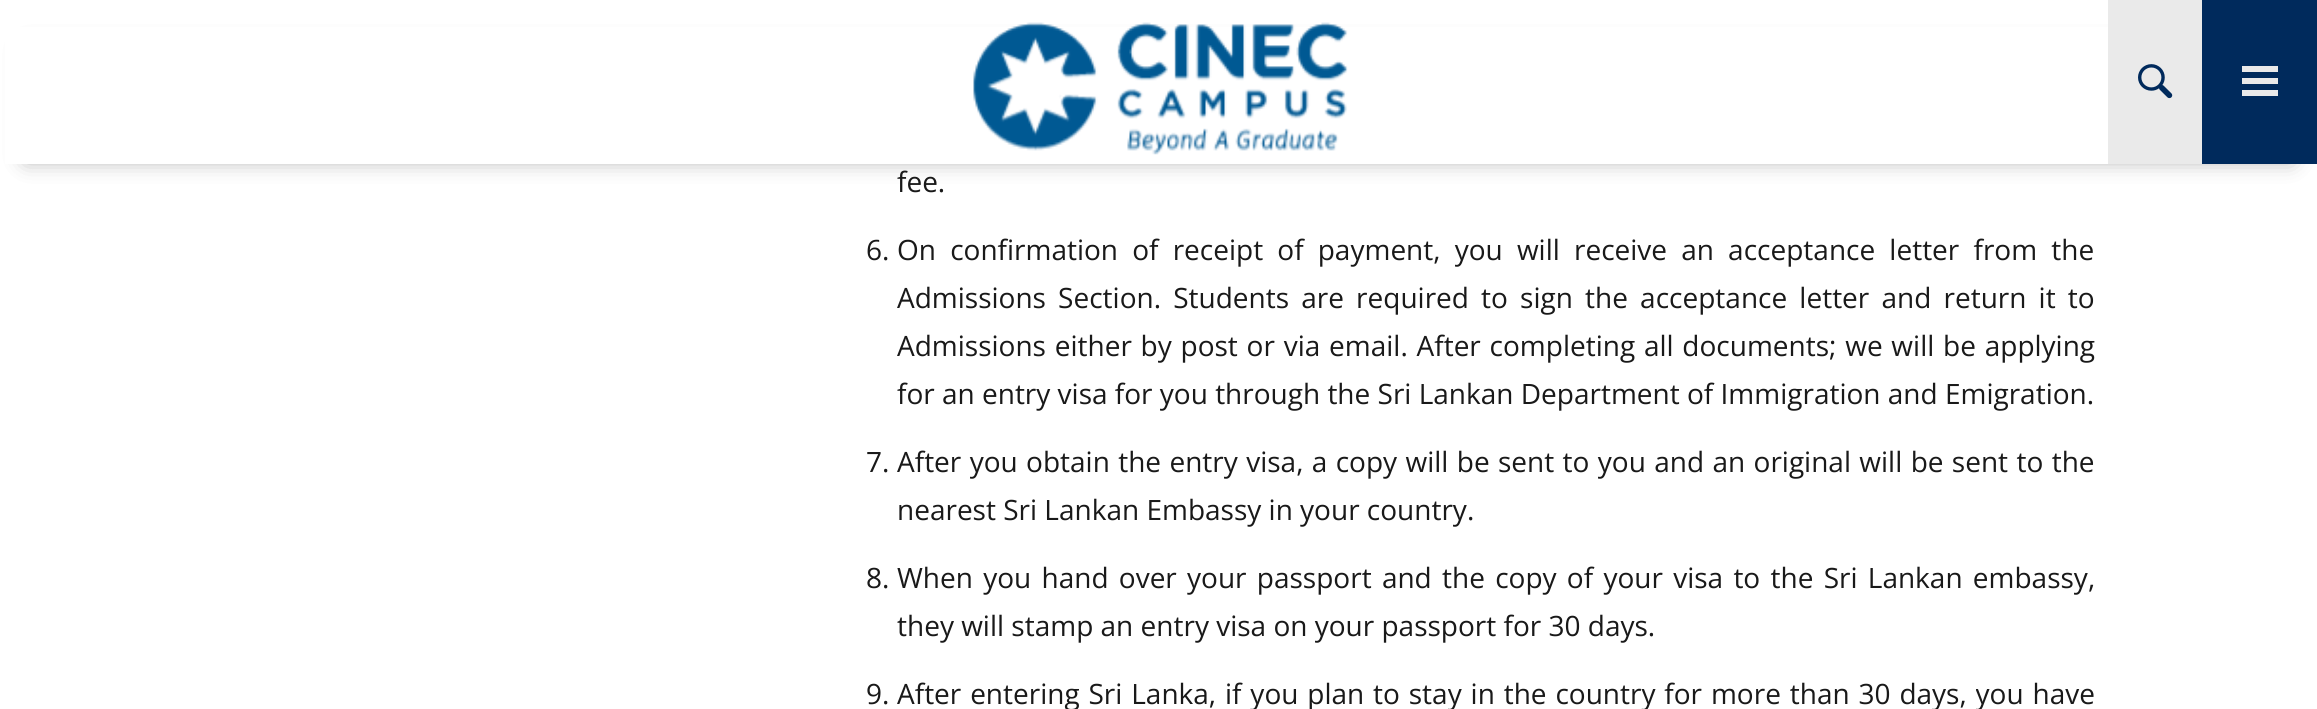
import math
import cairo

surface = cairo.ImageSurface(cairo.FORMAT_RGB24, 2317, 709)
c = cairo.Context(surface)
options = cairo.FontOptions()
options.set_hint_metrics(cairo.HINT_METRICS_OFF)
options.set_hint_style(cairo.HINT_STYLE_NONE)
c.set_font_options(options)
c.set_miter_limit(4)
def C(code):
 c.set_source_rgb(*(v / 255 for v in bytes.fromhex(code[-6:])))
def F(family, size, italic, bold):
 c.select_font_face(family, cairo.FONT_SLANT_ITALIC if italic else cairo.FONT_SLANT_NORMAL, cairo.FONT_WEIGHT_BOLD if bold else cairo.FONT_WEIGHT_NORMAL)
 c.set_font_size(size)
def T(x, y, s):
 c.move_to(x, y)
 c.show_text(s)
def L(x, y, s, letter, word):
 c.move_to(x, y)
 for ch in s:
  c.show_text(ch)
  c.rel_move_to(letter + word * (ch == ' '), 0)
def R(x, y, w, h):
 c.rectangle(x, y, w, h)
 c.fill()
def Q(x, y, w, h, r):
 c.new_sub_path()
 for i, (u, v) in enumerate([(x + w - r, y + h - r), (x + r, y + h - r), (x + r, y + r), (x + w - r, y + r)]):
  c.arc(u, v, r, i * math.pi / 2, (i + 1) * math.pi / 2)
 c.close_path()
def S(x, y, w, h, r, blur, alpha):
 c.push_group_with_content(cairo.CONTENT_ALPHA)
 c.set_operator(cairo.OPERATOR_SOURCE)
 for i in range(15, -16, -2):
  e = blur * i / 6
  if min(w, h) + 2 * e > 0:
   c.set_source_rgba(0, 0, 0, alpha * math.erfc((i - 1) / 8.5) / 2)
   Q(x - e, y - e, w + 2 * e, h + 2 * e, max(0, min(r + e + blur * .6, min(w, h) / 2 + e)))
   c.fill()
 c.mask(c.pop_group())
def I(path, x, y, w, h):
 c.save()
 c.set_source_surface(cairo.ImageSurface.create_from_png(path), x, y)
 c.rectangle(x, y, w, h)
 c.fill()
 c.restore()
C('ffffff')
c.paint()
C('000000')
S(26,48,2266,112,0,11,.35)
C('ffffff')
R(5,27,2103,137)
I('1.png',973,22,375,133)
C('eaeaea')
R(2108,0,94,164)
I('2.png',2138,64,35,35)
C('002a5c')
R(2202,0,115,164)
C('eaeaea')
R(2242,66,36,6)
R(2242,78,36,6)
R(2242,90,36,6)
F('Open Sans',28,0,0)
C('191919')
T(897,192,'fee.')
T(866,260,'6.')
L(897,260,'On confirmation of receipt of payment, you will receive an acceptance letter from the',0,6.9)
L(897,308,'Admissions Section. Students are required to sign the acceptance letter and return it to',0,4.9)
L(897,356,'Admissions either by post or via email. After completing all documents; we will be applying',0,1.5)
T(897,404,'for an entry visa for you through the Sri Lankan Department of Immigration and Emigration.')
T(866,472,'7.')
L(897,472,'After you obtain the entry visa, a copy will be sent to you and an original will be sent to the',0,1.1)
T(897,520,'nearest Sri Lankan Embassy in your country.')
T(866,588,'8.')
L(897,588,'When you hand over your passport and the copy of your visa to the Sri Lankan embassy,',0,3)
T(897,636,'they will stamp an entry visa on your passport for 30 days.')
T(866,704,'9.')
L(897,704,'After entering Sri Lanka, if you plan to stay in the country for more than 30 days, you have',0,1.6)
surface.write_to_png('o.png')
